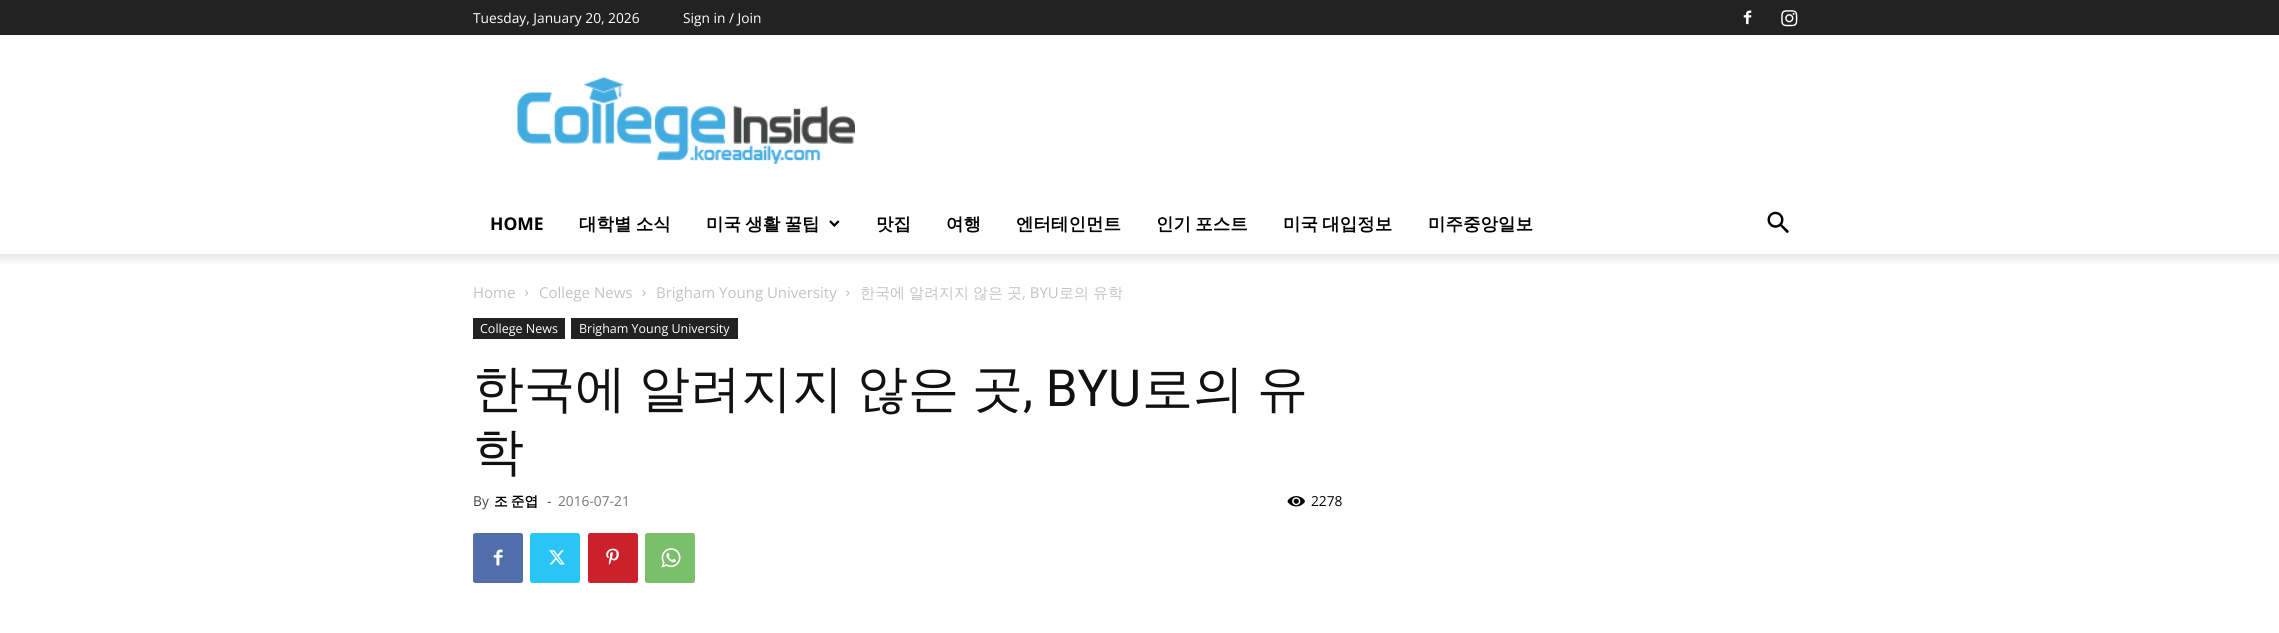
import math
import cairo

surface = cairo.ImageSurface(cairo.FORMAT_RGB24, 2279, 633)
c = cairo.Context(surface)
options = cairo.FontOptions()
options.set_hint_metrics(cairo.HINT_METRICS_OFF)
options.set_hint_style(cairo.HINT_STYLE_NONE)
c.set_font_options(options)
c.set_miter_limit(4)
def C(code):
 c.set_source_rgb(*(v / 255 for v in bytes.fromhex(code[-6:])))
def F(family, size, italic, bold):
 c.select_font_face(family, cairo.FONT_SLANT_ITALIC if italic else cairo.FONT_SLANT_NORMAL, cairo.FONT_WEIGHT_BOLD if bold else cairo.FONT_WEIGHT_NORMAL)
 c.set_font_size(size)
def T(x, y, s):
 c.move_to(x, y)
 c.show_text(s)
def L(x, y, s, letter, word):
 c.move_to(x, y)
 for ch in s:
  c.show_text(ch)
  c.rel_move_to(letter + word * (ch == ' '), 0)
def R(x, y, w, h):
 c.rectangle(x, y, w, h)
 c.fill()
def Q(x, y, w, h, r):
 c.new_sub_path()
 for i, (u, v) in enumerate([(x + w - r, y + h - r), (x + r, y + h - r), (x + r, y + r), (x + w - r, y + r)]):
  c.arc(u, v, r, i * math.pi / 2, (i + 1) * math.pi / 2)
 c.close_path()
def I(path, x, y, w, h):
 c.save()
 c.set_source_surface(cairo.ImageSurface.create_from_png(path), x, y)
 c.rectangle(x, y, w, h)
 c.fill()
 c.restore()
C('ffffff')
c.paint()
C('222222')
R(0,0,2279,35)
F('Open Sans',13.75,0,0)
C('ffffff')
T(473,23,'Tuesday, January 20, 2026')
T(683,23,'Sign in / Join')
I('1.png',1743,10,9,15)
I('2.png',1781,10,17,17)
I('3.png',517,77,338,87)
F('Open Sans',17.5,0,1)
C('000000')
T(490,230,'HOME')
F('WenQuanYi Zen Hei',17.5,0,1)
L(579,230,'대학별 소식',0,-1)
L(706,230,'미국 생활 꿀팁',0,-1)
I('4.png',829,220,11,7)
T(876,230,'맛집')
T(946,230,'여행')
T(1016,230,'엔터테인먼트')
L(1156,230,'인기 포스트',0,-1)
L(1283,230,'미국 대입정보',0,-1)
T(1428,230,'미주중앙일보')
I('5.png',1767,211,22,22)
I('6.png',0,254,2279,10)
F('Open Sans',15,0,0)
C('c3c3c3')
T(473,298,'Home')
I('7.png',525,290,4,6)
T(539,298,'College News')
I('8.png',642,290,4,6)
T(656,298,'Brigham Young University')
I('9.png',846,290,4,6)
F('WenQuanYi Zen Hei Medium',15,0,0)
T(860,298,'한국에')
T(909,298,'알려지지')
T(973,298,'않은')
T(1007,298,'곳')
F('Open Sans',15,0,0)
T(1022,298,', BYU')
F('WenQuanYi Zen Hei Medium',15,0,0)
T(1059,298,'로의')
T(1093,298,'유학')
C('222222')
R(473,318,92,21)
F('Open Sans',12.5,0,0)
C('ffffff')
T(480,333,'College News')
C('222222')
R(571,318,167,21)
C('ffffff')
T(579,333,'Brigham Young University')
F('WenQuanYi Zen Hei Medium',51,0,0)
C('111111')
T(473,406,'한국에')
T(639,406,'알려지지')
T(857,406,'않은')
T(972,406,'곳')
F('Roboto',51,0,0)
T(1023,406,', BYU')
F('WenQuanYi Zen Hei Medium',51,0,0)
T(1142,406,'로의')
T(1257,406,'유')
T(473,469,'학')
F('Open Sans',13.75,0,0)
C('444444')
T(473,506,'By')
F('WenQuanYi Zen Hei',13.75,0,1)
C('000000')
L(494,506,'조 준엽',0,-1)
F('Open Sans',13.75,0,0)
C('444444')
T(547,506,'-')
C('767676')
T(558,506,'2016-07-21')
I('10.png',1287,496,18,11)
C('000000')
T(1311,506,'2278')
C('516eab')
Q(473,533,50,50,2.5)
c.fill()
I('11.png',493,549,10,17)
C('29c5f6')
Q(530,533,50,50,2.5)
c.fill()
I('12.png',549,550,16,15)
C('ca212a')
Q(588,533,50,50,2.5)
c.fill()
I('13.png',606,548,13,17)
C('7bbf6a')
Q(645,533,50,50,2.5)
c.fill()
I('14.png',661,548,20,20)
surface.write_to_png('o.png')
